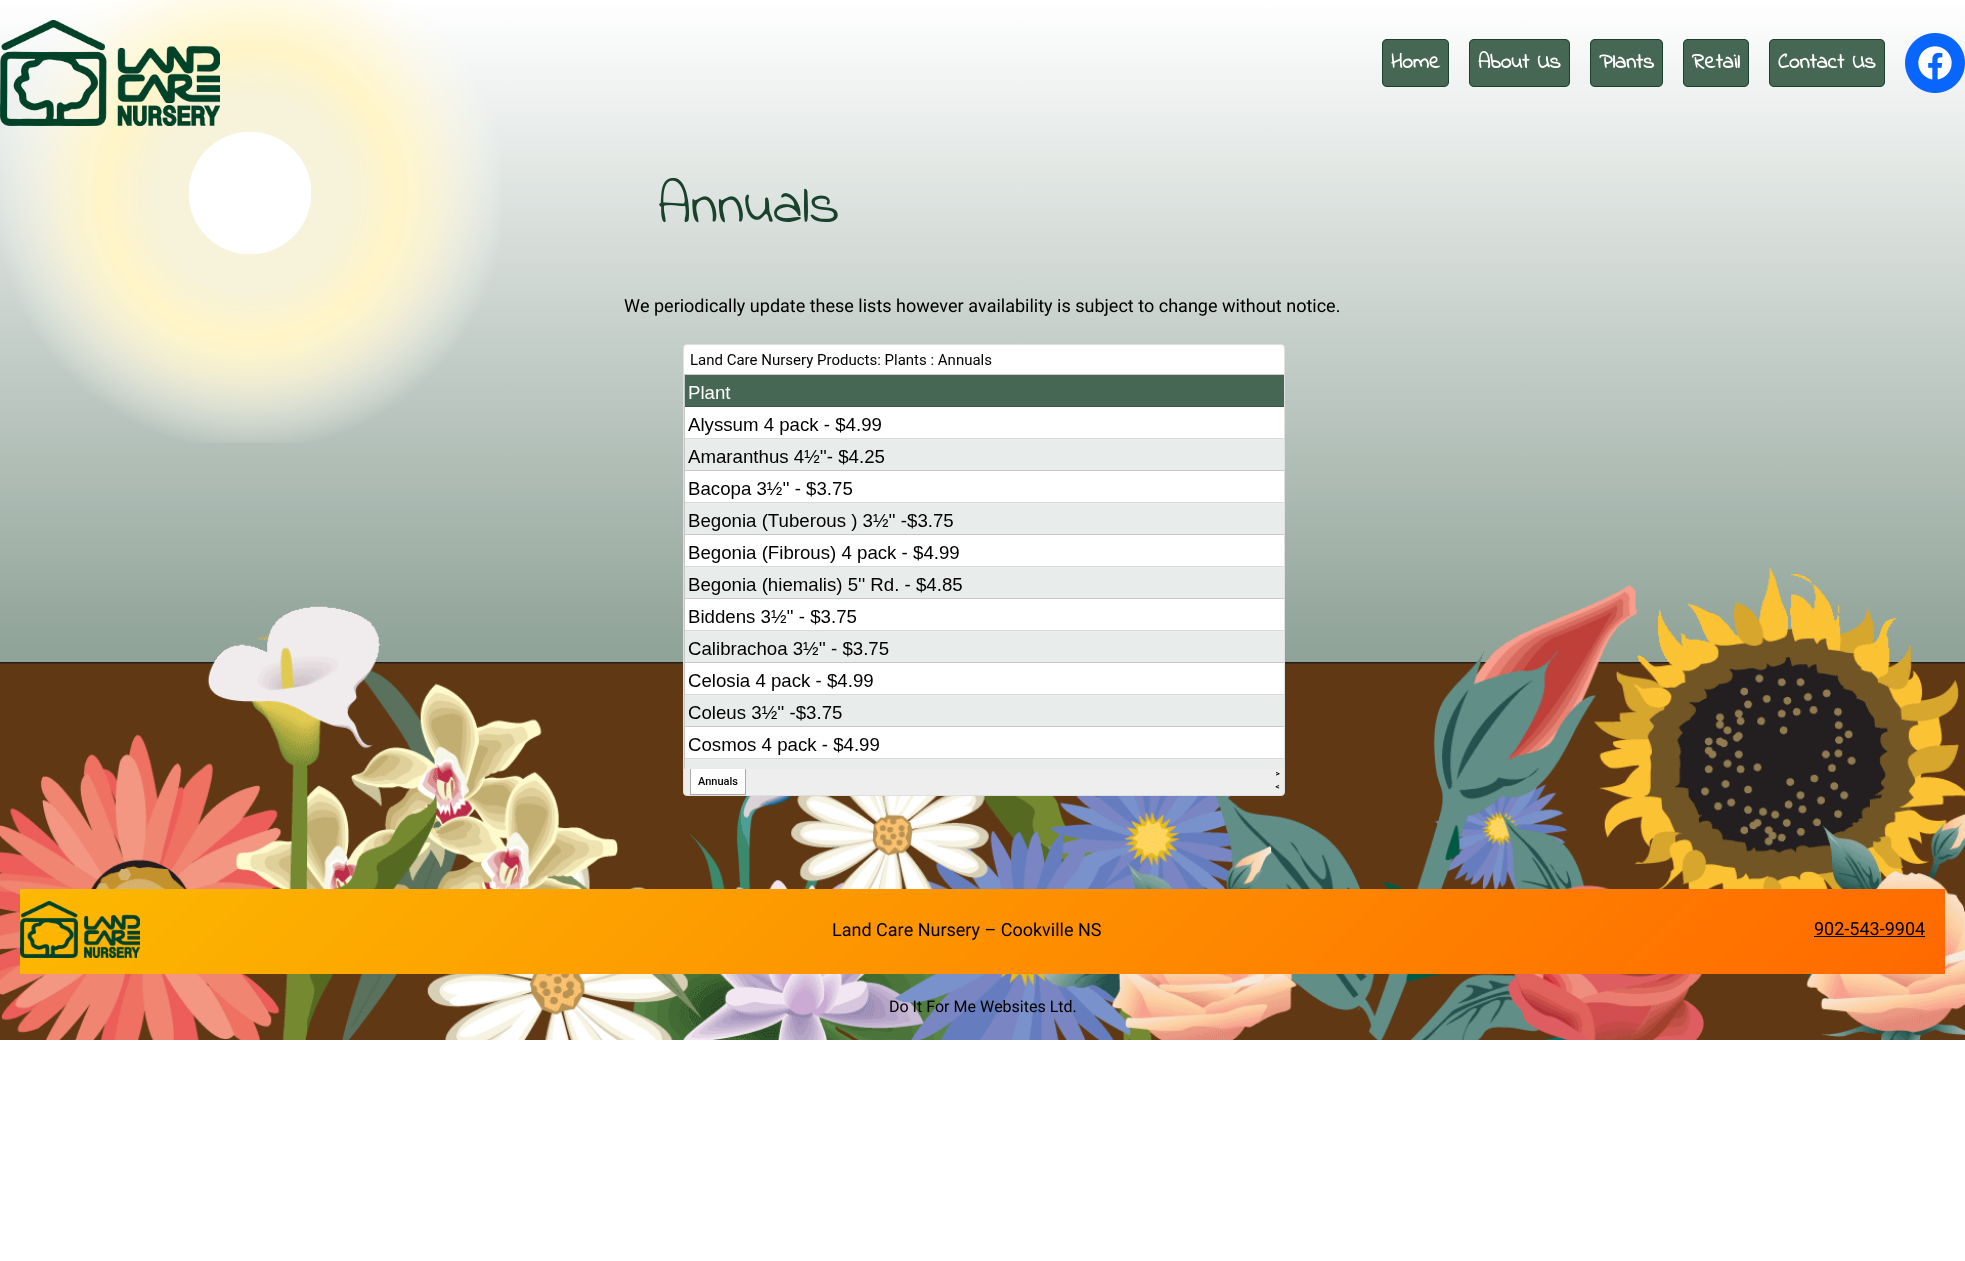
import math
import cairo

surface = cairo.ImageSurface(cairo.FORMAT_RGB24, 1965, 1261)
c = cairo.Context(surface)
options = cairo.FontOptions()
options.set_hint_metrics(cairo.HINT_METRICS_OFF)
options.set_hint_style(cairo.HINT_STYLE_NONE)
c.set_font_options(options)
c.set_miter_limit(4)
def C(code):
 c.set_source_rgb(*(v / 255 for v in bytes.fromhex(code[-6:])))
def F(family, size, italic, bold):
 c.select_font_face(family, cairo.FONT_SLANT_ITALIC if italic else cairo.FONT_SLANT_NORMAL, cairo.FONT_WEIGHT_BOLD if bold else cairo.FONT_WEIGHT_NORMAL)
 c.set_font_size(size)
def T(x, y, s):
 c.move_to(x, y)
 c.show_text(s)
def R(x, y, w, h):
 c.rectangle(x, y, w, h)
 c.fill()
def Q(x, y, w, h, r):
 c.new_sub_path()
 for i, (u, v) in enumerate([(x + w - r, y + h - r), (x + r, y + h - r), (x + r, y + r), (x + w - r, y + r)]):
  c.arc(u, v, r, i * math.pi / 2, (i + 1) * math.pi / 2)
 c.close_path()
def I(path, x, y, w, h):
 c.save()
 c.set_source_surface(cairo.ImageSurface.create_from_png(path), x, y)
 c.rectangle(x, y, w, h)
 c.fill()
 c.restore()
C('ffffff')
c.paint()
I('1.png',0,0,1965,1040)
I('2.png',0,20,220,106)
C('476755')
Q(1382.5,39.5,66,47,4.5)
c.fill_preserve()
C('19412b')
c.set_line_width(1)
c.stroke()
F('Indie Flower',21.5,0,1)
C('ffffff')
T(1391,68,'Home')
C('476755')
Q(1469.5,39.5,100,47,4.5)
c.fill_preserve()
C('19412b')
c.stroke()
C('ffffff')
T(1478,68,'About Us')
C('476755')
Q(1590.5,39.5,72,47,4.5)
c.fill_preserve()
C('19412b')
c.stroke()
C('ffffff')
T(1599,68,'Plants')
C('476755')
Q(1683.5,39.5,65,47,4.5)
c.fill_preserve()
C('19412b')
c.stroke()
C('ffffff')
T(1692,68,'Retail')
C('476755')
Q(1769.5,39.5,115,47,4.5)
c.fill_preserve()
C('19412b')
c.stroke()
C('ffffff')
T(1778,68,'Contact Us')
C('0866ff')
c.new_path()
c.arc(1935,63,30,0,2 * math.pi)
c.fill()
I('3.png',1918,46,34,34)
F('Indie Flower',58,0,0)
C('19412b')
T(658,222,'Annuals')
F('Roboto',18,0,0)
C('000000')
T(624,312,'We periodically update these lists however availability is subject to change without notice.')
Q(683.5,344.5,601,451,3.5)
C('e0e0e0')
c.stroke()
I('4.png',684,345,600,450)
gradient = cairo.LinearGradient(480,429,1485,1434)
gradient.add_color_stop_rgba(0,0.988,0.725,0,1)
gradient.add_color_stop_rgba(1,1,0.412,0,1)
c.set_source(gradient)
R(20,889,1925,85)
I('5.png',20,901,120,57)
C('000000')
T(832,936,'Land Care Nursery – Cookville NS')
T(1814,935,'902-543-9904')
R(1814,936,111,1)
F('Roboto',16,0,0)
T(889,1012,'Do It For Me Websites Ltd.')
surface.write_to_png('o.png')
